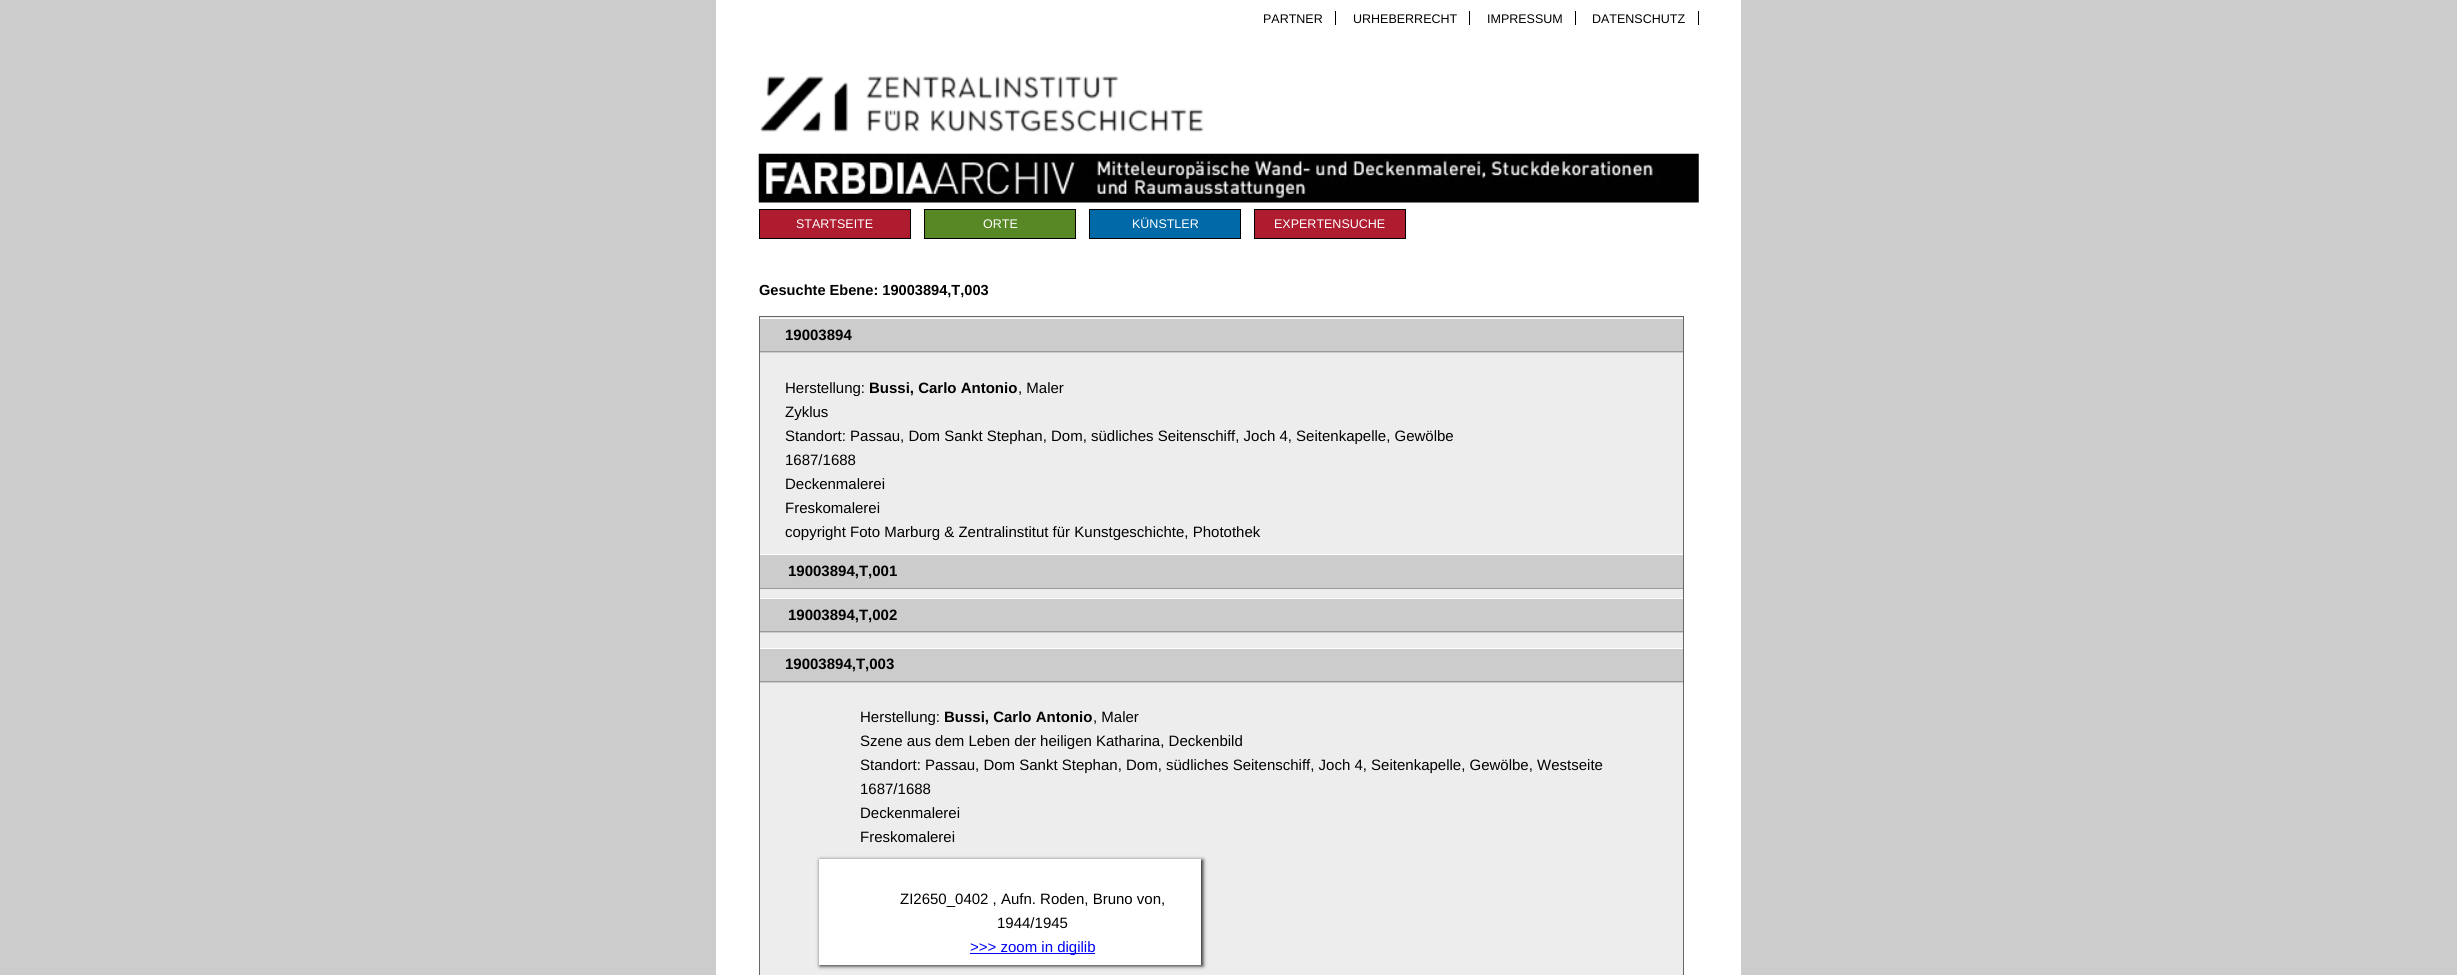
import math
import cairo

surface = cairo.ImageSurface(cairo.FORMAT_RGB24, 2457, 975)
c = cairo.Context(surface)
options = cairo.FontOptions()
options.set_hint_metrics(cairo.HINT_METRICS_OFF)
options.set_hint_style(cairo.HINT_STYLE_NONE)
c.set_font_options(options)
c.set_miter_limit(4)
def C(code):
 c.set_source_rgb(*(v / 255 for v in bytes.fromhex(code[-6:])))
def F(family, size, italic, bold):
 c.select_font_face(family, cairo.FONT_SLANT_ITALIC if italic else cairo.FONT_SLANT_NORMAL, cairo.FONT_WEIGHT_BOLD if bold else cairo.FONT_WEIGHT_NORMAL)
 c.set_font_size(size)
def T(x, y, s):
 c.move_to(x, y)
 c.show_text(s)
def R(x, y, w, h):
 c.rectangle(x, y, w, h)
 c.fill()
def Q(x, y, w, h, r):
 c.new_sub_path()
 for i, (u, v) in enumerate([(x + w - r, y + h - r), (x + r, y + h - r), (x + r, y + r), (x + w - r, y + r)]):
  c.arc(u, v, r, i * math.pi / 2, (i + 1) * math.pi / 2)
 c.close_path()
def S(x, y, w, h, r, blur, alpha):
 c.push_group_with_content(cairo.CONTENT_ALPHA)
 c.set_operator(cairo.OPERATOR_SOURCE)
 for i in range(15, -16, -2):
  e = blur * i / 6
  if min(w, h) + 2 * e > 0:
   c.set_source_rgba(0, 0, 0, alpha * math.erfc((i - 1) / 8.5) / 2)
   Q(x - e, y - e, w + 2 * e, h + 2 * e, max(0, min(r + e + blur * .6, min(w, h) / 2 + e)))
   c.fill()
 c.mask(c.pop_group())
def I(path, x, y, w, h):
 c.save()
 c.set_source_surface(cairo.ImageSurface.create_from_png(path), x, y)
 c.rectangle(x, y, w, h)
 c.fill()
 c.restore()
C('cccccc')
c.paint()
C('ffffff')
R(716,0,1025,975)
F('Liberation Sans',12.5,0,0)
C('000000')
T(1263,23,'PARTNER')
R(1335,11,1,14)
T(1353,23,'URHEBERRECHT')
R(1469,11,1,14)
T(1487,23,'IMPRESSUM')
R(1575,11,1,14)
T(1592,23,'DATENSCHUTZ')
R(1698,11,1,14)
I('1.png',760,76,444,56)
I('2.png',758,153,941,50)
C('af1b2f')
c.rectangle(759.5,209.5,151,29)
c.fill_preserve()
C('000000')
c.set_line_width(1)
c.stroke()
C('ffffff')
T(796,228,'STARTSEITE')
C('588726')
c.rectangle(924.5,209.5,151,29)
c.fill_preserve()
C('000000')
c.stroke()
C('ffffff')
T(983,228,'ORTE')
C('0069a8')
c.rectangle(1089.5,209.5,151,29)
c.fill_preserve()
C('000000')
c.stroke()
C('ffffff')
T(1132,228,'KÜNSTLER')
C('af1b2f')
c.rectangle(1254.5,209.5,151,29)
c.fill_preserve()
C('000000')
c.stroke()
C('ffffff')
T(1274,228,'EXPERTENSUCHE')
F('Liberation Sans',14.6,0,1)
C('000000')
T(759,295,'Gesuchte Ebene: 19003894,T,003')
C('ededed')
c.rectangle(759.5,316.5,924,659)
c.fill_preserve()
C('666666')
c.stroke()
C('cccccc')
R(760,319,923,34)
C('ffffff')
R(760,318,923,1)
C('999999')
R(760,351,923,1)
F('Liberation Sans',15,0,1)
C('000000')
T(785,340,'19003894')
F('Liberation Sans',15,0,0)
T(785,393,'Herstellung:')
F('Liberation Sans',15,0,1)
T(869,393,'Bussi, Carlo Antonio')
F('Liberation Sans',15,0,0)
T(1018,393,', Maler')
T(785,417,'Zyklus')
T(785,441,'Standort: Passau, Dom Sankt Stephan, Dom, südliches Seitenschiff, Joch 4, Seitenkapelle, Gewölbe')
T(785,465,'1687/1688')
T(785,489,'Deckenmalerei')
T(785,513,'Freskomalerei')
T(785,537,'copyright Foto Marburg & Zentralinstitut für Kunstgeschichte, Photothek')
C('cccccc')
R(760,555,923,33)
C('ffffff')
R(760,554,923,1)
C('999999')
R(760,588,923,1)
F('Liberation Sans',15,0,1)
C('000000')
T(788,576,'19003894,T,001')
C('cccccc')
R(760,599,923,34)
C('ffffff')
R(760,598,923,1)
C('999999')
R(760,631,923,1)
C('000000')
T(788,620,'19003894,T,002')
C('cccccc')
R(760,649,923,34)
C('ffffff')
R(760,648,923,1)
C('999999')
R(760,681,923,1)
C('000000')
T(785,669,'19003894,T,003')
F('Liberation Sans',15,0,0)
T(860,722,'Herstellung:')
F('Liberation Sans',15,0,1)
T(944,722,'Bussi, Carlo Antonio')
F('Liberation Sans',15,0,0)
T(1093,722,', Maler')
T(860,746,'Szene aus dem Leben der heiligen Katharina, Deckenbild')
T(860,770,'Standort: Passau, Dom Sankt Stephan, Dom, südliches Seitenschiff, Joch 4, Seitenkapelle, Gewölbe, Westseite')
T(860,794,'1687/1688')
T(860,818,'Deckenmalerei')
T(860,842,'Freskomalerei')
C('222222')
S(820,860,383,106,0,2,1)
C('ffffff')
R(819,859,382,106)
C('000000')
T(900,904,'ZI2650_0402 , Aufn. Roden, Bruno von,')
T(997,928,'1944/1945')
C('0000ee')
R(970,953,125,1)
T(970,952,'>>> zoom in digilib')
surface.write_to_png('o.png')
